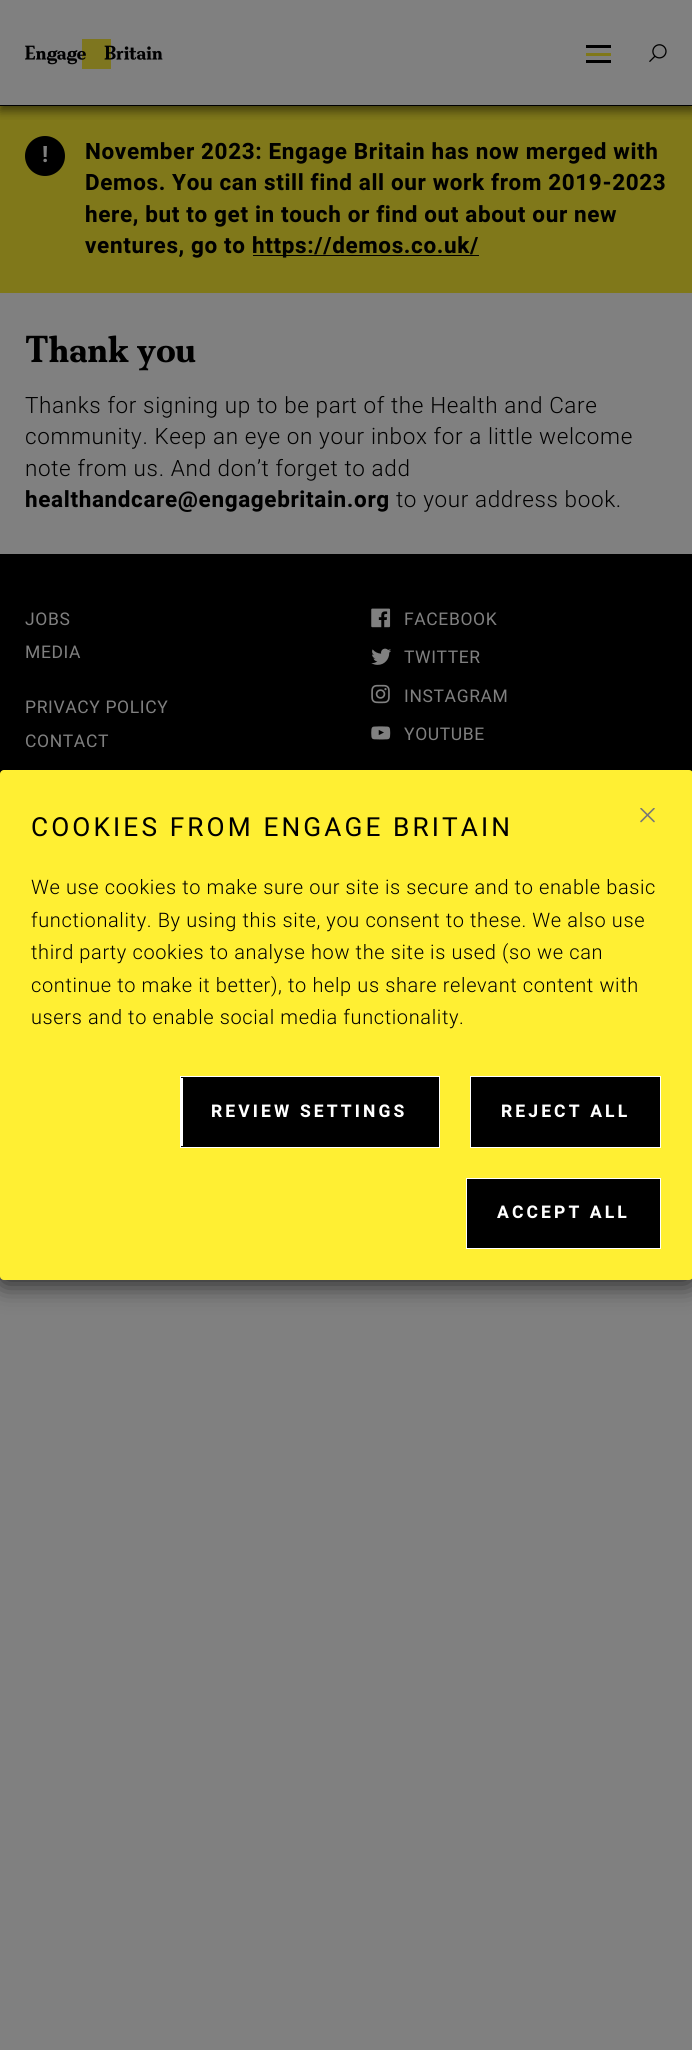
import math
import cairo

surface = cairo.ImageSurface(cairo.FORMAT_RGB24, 692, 2050)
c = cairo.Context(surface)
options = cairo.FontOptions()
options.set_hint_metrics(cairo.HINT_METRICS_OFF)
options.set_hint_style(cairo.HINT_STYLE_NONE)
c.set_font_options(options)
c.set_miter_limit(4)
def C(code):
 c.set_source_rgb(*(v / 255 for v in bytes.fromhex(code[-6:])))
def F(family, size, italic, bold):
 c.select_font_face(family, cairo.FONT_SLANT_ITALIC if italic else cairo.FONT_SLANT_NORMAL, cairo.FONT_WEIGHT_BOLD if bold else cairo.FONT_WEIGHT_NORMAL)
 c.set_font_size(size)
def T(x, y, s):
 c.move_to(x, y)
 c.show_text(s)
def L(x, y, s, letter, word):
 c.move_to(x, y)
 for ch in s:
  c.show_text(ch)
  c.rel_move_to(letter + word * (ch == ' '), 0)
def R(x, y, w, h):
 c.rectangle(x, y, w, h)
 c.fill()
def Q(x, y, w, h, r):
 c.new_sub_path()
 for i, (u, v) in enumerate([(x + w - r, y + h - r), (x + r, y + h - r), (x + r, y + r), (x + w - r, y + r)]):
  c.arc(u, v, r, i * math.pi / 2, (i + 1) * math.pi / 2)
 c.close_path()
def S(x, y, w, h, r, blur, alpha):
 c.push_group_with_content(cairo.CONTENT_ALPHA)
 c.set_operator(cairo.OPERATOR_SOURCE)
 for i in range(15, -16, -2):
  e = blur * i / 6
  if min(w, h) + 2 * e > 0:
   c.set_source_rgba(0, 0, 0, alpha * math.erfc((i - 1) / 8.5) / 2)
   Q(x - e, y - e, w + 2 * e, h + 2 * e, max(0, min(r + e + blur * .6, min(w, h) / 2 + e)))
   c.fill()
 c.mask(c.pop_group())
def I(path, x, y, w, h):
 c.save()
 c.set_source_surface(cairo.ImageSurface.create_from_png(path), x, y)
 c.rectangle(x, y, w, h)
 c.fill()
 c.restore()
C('808080')
c.paint()
C('80781a')
R(0,106,692,187)
c.save()
c.rectangle(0,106,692,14)
c.clip()
C('000000')
S(0,5,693,106,0,5,.5)
c.restore()
I('1.png',25,39,138,30)
C('000000')
R(586,45,25,3)
C('80781a')
R(586,53,25,3)
C('000000')
R(586,60,25,3)
I('2.png',649,44,18,18)
R(0,105,692,1)
c.arc(45,156,20,0,2 * math.pi)
c.fill()
F('Heebo',22.5,0,1)
C('808080')
L(42,162,'!',.62,0)
C('000000')
L(85,159,'November 2023: Engage Britain has now merged with',.62,0)
L(85,190,'Demos. You can still find all our work from 2019-2023',.62,0)
L(85,222,'here, but to get in touch or find out about our new',.62,0)
L(85,253,'ventures, go to',.62,0)
R(253,255,226,1)
L(252,253,'https://demos.co.uk/',.62,0)
F('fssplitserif',37.5,0,1)
T(25,362,'Thank you')
F('Heebo Light',22.5,0,0)
L(25,413,'Thanks for signing up to be part of the Health and Care',.62,0)
L(25,444,'community. Keep an eye on your inbox for a little welcome',.62,0)
L(25,476,'note from us. And don’t forget to add',.62,0)
F('Heebo',22.5,0,1)
L(25,507,'healthandcare@engagebritain.org',.62,0)
F('Heebo Light',22.5,0,0)
L(396,507,'to your address book.',.62,0)
R(0,554,692,220)
F('Heebo',17.5,0,0)
C('808080')
L(25,625,'JOBS',.62,0)
L(25,658,'MEDIA',.62,0)
L(25,713,'PRIVACY POLICY',.62,0)
L(25,747,'CONTACT',.62,0)
I('3.png',371,608,20,20)
L(404,625,'FACEBOOK',.62,0)
I('4.png',371,648,20,17)
L(404,663,'TWITTER',.62,0)
I('5.png',371,684,19,20)
L(404,702,'INSTAGRAM',.62,0)
I('6.png',371,726,20,14)
L(404,740,'YOUTUBE',.62,0)
C('000000')
S(0,774,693,510,4,12.5,.7)
C('ffef33')
Q(0,770,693,510,4)
c.fill()
c.save()
c.rectangle(640,808,15,15)
c.clip()
c.new_path()
c.move_to(654,808.5)
c.line_to(641,821.5)
c.move_to(641,808.5)
c.line_to(654,821.5)
C('777777')
c.set_line_width(1.6)
c.set_line_cap(cairo.LINE_CAP_ROUND)
c.set_line_join(cairo.LINE_JOIN_ROUND)
c.stroke()
c.restore()
F('Heebo',26.25,0,0)
C('000000')
L(31,836,'COOKIES FROM ENGAGE BRITAIN',3.1,0)
F('Heebo Light',20,0,0)
L(31,894,'We use cookies to make sure our site is secure and to enable basic',.62,0)
L(31,927,'functionality. By using this site, you consent to these. We also use',.62,0)
L(31,959,'third party cookies to analyse how the site is used (so we can',.62,0)
L(31,992,'continue to make it better), to help us share relevant content with',.62,0)
L(31,1024,'users and to enable social media functionality.',.62,0)
c.rectangle(180.5,1076.5,259,71)
c.fill_preserve()
C('ffffff')
c.set_line_width(1)
c.stroke()
R(181,1078,2,68)
F('Heebo',17.5,0,1)
L(211,1117,'REVIEW SETTINGS',3.1,0)
C('000000')
c.rectangle(470.5,1076.5,190,71)
c.fill_preserve()
C('ffffff')
c.stroke()
L(501,1117,'REJECT ALL',3.1,0)
C('000000')
c.rectangle(466.5,1178.5,194,70)
c.fill_preserve()
C('ffffff')
c.stroke()
L(497,1218,'ACCEPT ALL',3.1,0)
surface.write_to_png('o.png')
